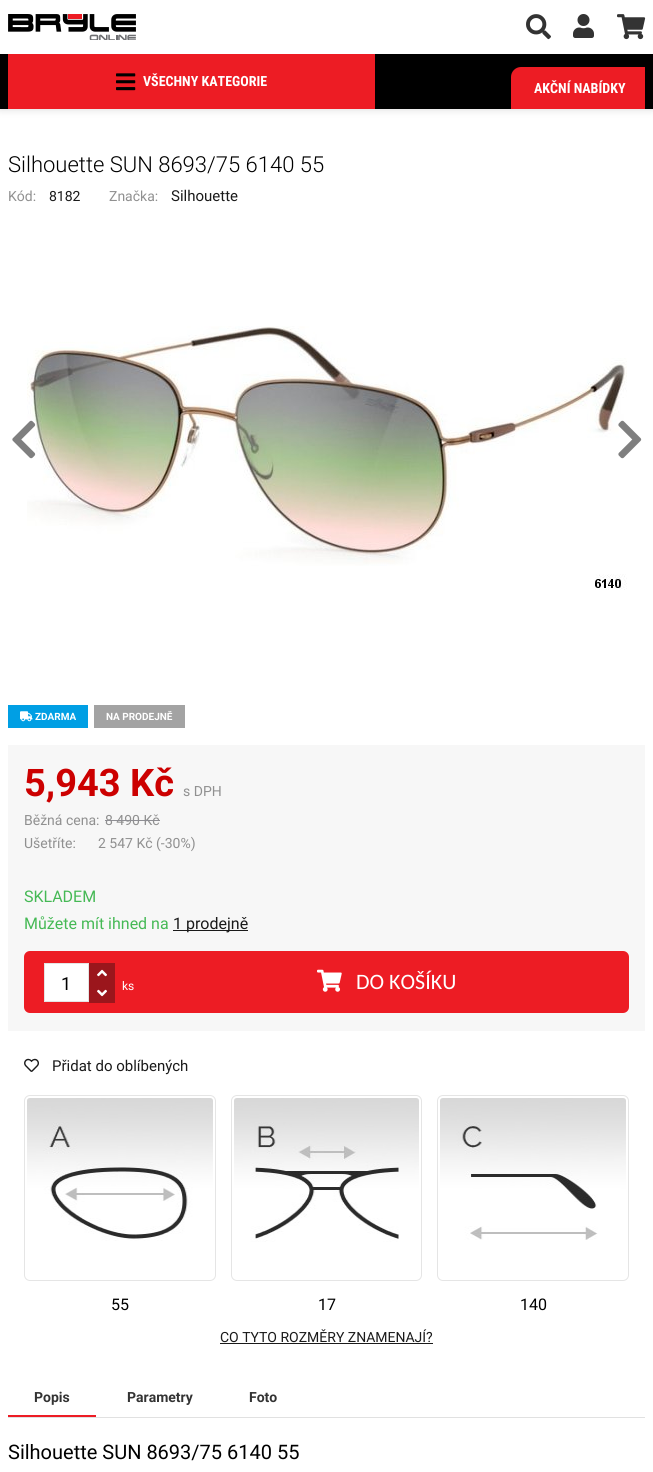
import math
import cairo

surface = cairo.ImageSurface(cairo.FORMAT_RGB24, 653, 1472)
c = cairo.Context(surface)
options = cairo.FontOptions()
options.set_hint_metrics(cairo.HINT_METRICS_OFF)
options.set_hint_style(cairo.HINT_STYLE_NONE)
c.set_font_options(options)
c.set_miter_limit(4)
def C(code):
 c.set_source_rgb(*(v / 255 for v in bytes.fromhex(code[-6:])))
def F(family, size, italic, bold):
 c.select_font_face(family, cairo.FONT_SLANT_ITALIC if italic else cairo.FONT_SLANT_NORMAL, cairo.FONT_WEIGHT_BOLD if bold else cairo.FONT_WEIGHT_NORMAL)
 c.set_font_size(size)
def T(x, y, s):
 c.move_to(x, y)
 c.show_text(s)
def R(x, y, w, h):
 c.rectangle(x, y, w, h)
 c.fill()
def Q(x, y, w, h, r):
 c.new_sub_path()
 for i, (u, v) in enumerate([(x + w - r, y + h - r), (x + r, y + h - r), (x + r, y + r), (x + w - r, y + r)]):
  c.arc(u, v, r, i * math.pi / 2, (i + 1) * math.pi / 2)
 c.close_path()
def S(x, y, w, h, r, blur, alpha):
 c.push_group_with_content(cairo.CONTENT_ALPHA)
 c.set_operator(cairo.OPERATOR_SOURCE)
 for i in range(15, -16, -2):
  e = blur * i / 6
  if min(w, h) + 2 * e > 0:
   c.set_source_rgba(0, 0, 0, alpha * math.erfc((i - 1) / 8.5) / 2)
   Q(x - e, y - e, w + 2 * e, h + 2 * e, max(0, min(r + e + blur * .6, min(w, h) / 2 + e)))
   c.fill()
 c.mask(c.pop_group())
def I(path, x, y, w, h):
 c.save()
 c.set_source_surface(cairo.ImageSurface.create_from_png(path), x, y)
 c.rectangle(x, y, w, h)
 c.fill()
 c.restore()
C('ffffff')
c.paint()
C('c9c9c9')
S(0,0,653,109,0,4,.75)
C('000000')
R(0,54,653,55)
C('ffffff')
R(0,0,653,54)
I('1.png',8,14,128,26)
I('2.png',526,14,25,26)
I('3.png',573,14,21,24)
I('4.png',617,14,29,26)
C('ed1c24')
R(8,54,367,55)
I('5.png',116,73,20,18)
F('Roboto Condensed',14,0,1)
C('ffffff')
T(143,86,'VŠECHNY KATEGORIE')
C('ed1c24')
c.new_path()
c.move_to(521,67)
c.line_to(645,67)
c.line_to(645,109)
c.line_to(511,109)
c.line_to(511,77)
c.curve_to(511,71.5,515.5,67,521,67)
c.close_path()
c.fill()
C('ffffff')
T(534,93,'AKČNÍ NABÍDKY')
F('Roboto Light',22,0,0)
C('000000')
T(8,172,'Silhouette SUN 8693/75 6140 55')
F('Roboto',14,0,0)
C('909090')
T(8,201,'Kód:')
C('1a1a1a')
T(49,201,'8182')
C('909090')
T(109,201,'Značka:')
F('Roboto',15,0,0)
C('1a1a1a')
T(171,201,'Silhouette')
I('6.png',27,326,600,264)
I('7.png',12,420,24,39)
I('8.png',618,420,24,39)
C('009fe4')
R(8,705,80,23)
I('9.png',20,711,13,11)
F('Roboto',10,0,1)
C('ffffff')
T(35,720,'ZDARMA')
C('a3a3a3')
R(94,705,91,23)
C('ffffff')
T(106,720,'NA PRODEJNĚ')
C('f7f7f7')
R(8,745,637,286)
F('Roboto',38,0,1)
C('cc0000')
T(24,796,'5,943 Kč')
F('Roboto',14,0,0)
C('909090')
T(183,796,'s DPH')
T(24,825,'Běžná cena:')
T(105,825,'8 490 Kč')
C('8e8e93')
R(105,820,55,1)
C('909090')
T(24,848,'Ušetříte:')
T(98,848,'2 547 Kč (-30%)')
F('Roboto',16,0,0)
C('45b955')
T(24,902,'SKLADEM')
T(24,929,'Můžete mít ihned na')
C('1a1a1a')
R(173,930,75,1)
T(173,929,'1 prodejně')
C('ed1c24')
Q(24,951,605,62,6)
c.fill()
C('ffffff')
c.rectangle(44.5,963.5,44,38)
c.fill_preserve()
C('e4e4e4')
c.set_line_width(1)
c.stroke()
F('Roboto',18,0,0)
C('000000')
T(61,990,'1')
C('9b161c')
R(89,963,26,40)
I('10.png',97,969,10,8)
I('11.png',97,989,10,8)
F('Roboto',12,0,0)
C('ffffff')
T(122,990,'ks')
I('12.png',317,969,25,23)
F('Carlito',22,0,0)
T(356,989,'DO KOŠÍKU')
I('13.png',24,1058,15,14)
F('Roboto',15,0,0)
C('1a1a1a')
T(52,1071,'Přidat do oblíbených')
Q(24.5,1095.5,191,185,5.5)
C('e5e5e5')
c.stroke()
I('14.png',27,1098,186,143)
F('Roboto',16,0,0)
C('000000')
T(111,1310,'55')
Q(231.5,1095.5,190,185,5.5)
C('e5e5e5')
c.stroke()
I('15.png',234,1098,185,144)
C('000000')
T(318,1310,'17')
Q(437.5,1095.5,191,185,5.5)
C('e5e5e5')
c.stroke()
I('16.png',440,1098,186,142)
C('000000')
T(520,1310,'140')
F('Roboto',14,0,0)
C('1a1a1a')
T(220,1342,'CO TYTO ROZMĚRY ZNAMENAJÍ?')
R(220,1343,213,1)
C('ed1c24')
R(8,1415,88,2)
F('Roboto',14,0,1)
C('333333')
T(34,1402,'Popis')
T(127,1402,'Parametry')
T(249,1402,'Foto')
C('e1e1e1')
R(8,1417,637,1)
F('Roboto',20,0,0)
C('000000')
T(8,1459,'Silhouette SUN 8693/75 6140 55')
surface.write_to_png('o.png')
